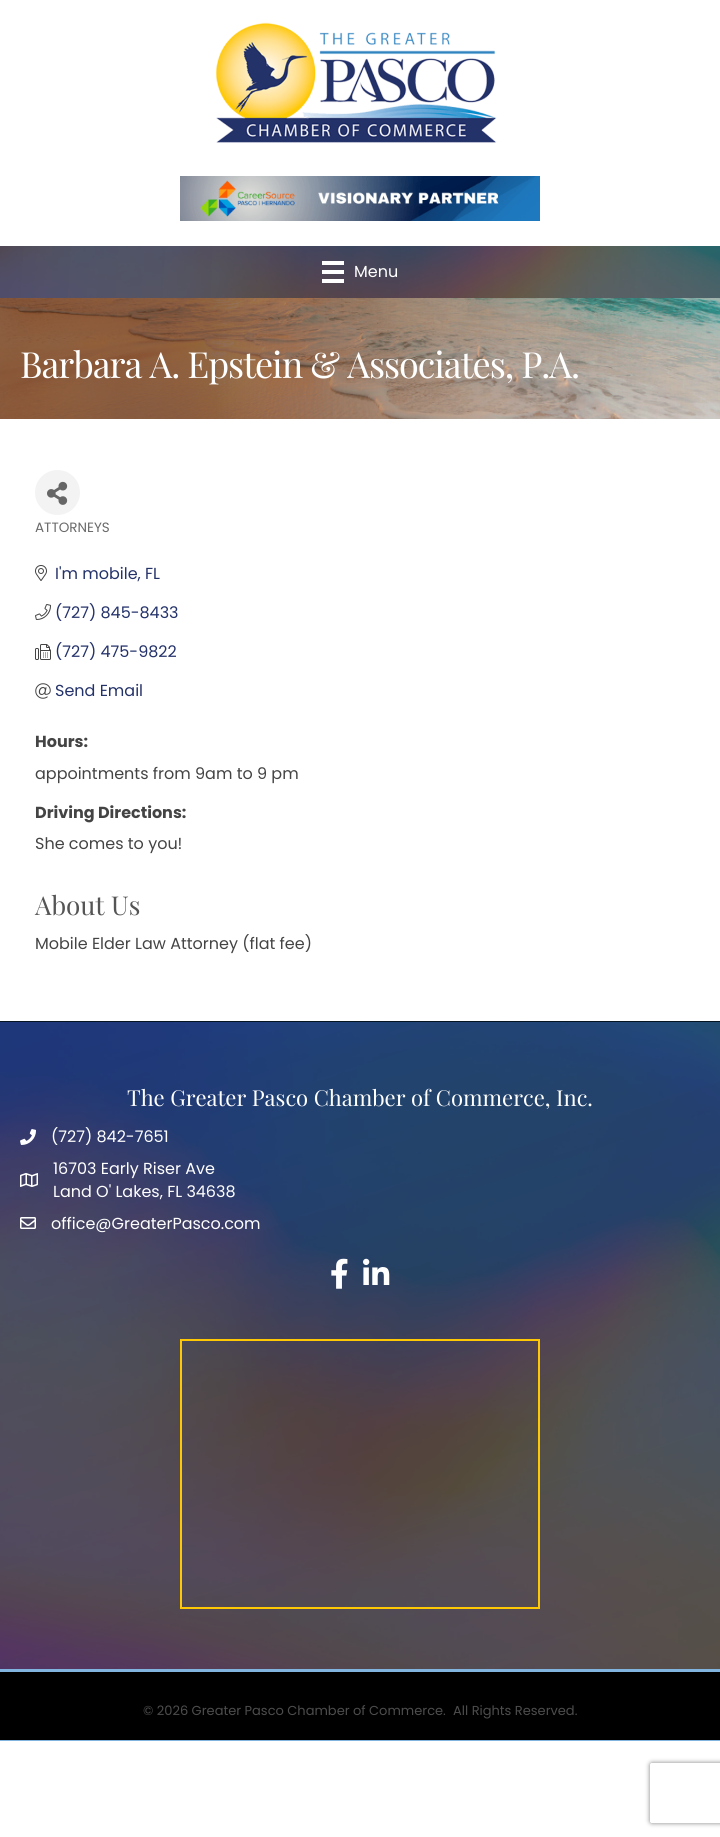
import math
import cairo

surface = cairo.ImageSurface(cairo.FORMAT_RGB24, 720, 1837)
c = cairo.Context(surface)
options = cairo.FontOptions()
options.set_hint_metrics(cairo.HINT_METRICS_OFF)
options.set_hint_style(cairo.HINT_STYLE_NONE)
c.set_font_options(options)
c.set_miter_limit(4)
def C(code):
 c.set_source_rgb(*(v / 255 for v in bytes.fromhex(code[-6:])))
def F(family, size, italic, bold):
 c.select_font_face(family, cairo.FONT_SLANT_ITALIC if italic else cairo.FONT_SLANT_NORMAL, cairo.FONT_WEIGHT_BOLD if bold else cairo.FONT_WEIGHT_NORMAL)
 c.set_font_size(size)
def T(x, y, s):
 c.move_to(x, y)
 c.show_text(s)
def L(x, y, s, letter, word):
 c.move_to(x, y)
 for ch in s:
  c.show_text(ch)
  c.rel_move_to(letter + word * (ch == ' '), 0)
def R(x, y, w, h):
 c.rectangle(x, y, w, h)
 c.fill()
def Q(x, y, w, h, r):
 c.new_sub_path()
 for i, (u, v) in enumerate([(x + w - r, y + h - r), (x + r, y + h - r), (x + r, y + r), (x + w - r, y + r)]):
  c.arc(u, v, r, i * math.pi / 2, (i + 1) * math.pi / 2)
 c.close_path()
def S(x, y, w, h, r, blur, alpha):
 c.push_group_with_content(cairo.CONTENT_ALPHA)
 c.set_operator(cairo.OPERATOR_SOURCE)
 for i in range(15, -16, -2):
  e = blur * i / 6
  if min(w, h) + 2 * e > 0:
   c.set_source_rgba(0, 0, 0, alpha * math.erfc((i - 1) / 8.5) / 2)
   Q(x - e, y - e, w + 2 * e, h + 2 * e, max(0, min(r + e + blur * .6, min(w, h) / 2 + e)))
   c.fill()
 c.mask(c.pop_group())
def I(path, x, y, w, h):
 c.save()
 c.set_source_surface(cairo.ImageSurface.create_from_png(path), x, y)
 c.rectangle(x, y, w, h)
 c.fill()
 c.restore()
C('ffffff')
c.paint()
I('1.png',216,22,281,121)
I('2.png',180,176,360,45)
I('3.png',0,246,720,52)
C('ffffff')
R(322,261,22,4)
R(322,270,22,4)
R(322,279,22,4)
F('Poppins',16,0,0)
T(354,277,'Menu')
I('4.png',0,298,720,121)
F('Playfair Display',36,0,0)
L(20,378,'Barbara A. Epstein & Associates, P.A.',-1,0)
C('f3f3f3')
c.new_path()
c.arc(57.5,492.5,22.5,0,2 * math.pi)
c.fill()
I('5.png',47,481,21,24)
F('Poppins',13.5,0,0)
C('696969')
T(35,532,'ATTORNEYS')
I('6.png',35,565,12,16)
F('Poppins',16,0,0)
C('24326a')
T(55,579,'I\'m mobile, FL')
I('7.png',35,604,16,16)
T(55,618,'(727) 845-8433')
I('8.png',35,644,16,16)
T(55,657,'(727) 475-9822')
I('9.png',35,683,16,16)
T(55,696,'Send Email')
F('Poppins',16,0,1)
C('444444')
T(35,747,'Hours:')
F('Poppins',16,0,0)
T(35,779,'appointments from 9am to 9 pm')
F('Poppins',16,0,1)
T(35,818,'Driving Directions:')
F('Poppins',16,0,0)
T(35,849,'She comes to you!')
F('Playfair Display',26,0,0)
C('555555')
T(35,915,'About Us')
F('Poppins',16,0,0)
C('444444')
T(35,949,'Mobile Elder Law Attorney (flat fee)')
I('10.png',0,1022,720,647)
C('051622')
R(0,1021,720,1)
F('Playfair Display',22,0,0)
C('ffffff')
T(127,1106,'The Greater Pasco Chamber of Commerce, Inc.')
I('11.png',20,1129,16,16)
F('Poppins',16,0,0)
T(51,1142,'(727) 842-7651')
I('12.png',20,1173,18,14)
T(53,1174,'16703 Early Riser Ave')
T(53,1197,'Land O\' Lakes, FL 34638')
I('13.png',20,1217,16,12)
T(51,1229,'office@GreaterPasco.com')
I('14.png',331,1258,17,31)
I('15.png',363,1258,27,27)
c.rectangle(181,1340,358,268)
C('ffc805')
c.stroke()
C('000000')
R(0,1672,720,68)
C('81b4de')
R(0,1669,720,3)
R(0,1740,720,1)
F('Poppins',13,0,0)
C('4d4d4d')
T(143,1715,'© 2026 Greater Pasco Chamber of Commerce.')
T(453,1715,'All Rights Reserved.')
c.save()
c.set_fill_rule(cairo.FILL_RULE_EVEN_ODD)
c.new_path()
c.move_to(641,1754)
c.line_to(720,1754)
c.line_to(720,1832)
c.line_to(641,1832)
c.close_path()
c.move_to(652,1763)
c.line_to(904,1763)
c.curve_to(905,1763,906,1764,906,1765)
c.line_to(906,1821)
c.curve_to(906,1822,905,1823,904,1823)
c.line_to(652,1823)
c.curve_to(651,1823,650,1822,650,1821)
c.line_to(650,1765)
c.curve_to(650,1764,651,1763,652,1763)
c.close_path()
c.clip()
C('808080')
S(650,1763,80,60,2,2.5,1)
c.restore()
surface.write_to_png('o.png')
